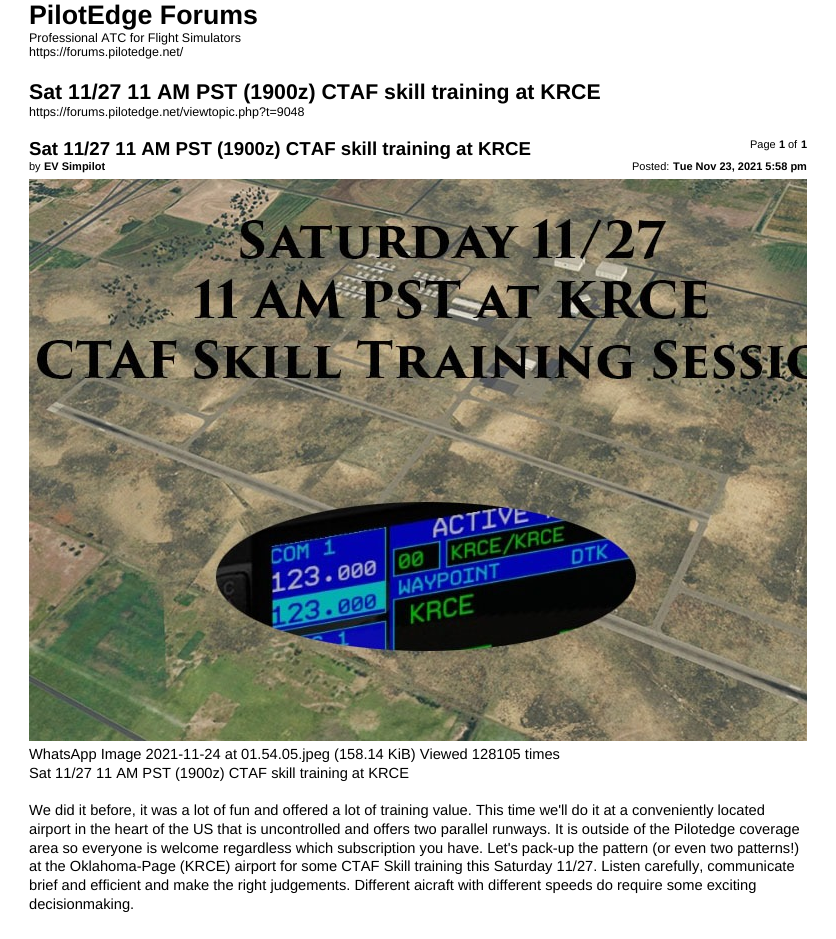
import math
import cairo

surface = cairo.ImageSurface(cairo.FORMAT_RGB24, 836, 939)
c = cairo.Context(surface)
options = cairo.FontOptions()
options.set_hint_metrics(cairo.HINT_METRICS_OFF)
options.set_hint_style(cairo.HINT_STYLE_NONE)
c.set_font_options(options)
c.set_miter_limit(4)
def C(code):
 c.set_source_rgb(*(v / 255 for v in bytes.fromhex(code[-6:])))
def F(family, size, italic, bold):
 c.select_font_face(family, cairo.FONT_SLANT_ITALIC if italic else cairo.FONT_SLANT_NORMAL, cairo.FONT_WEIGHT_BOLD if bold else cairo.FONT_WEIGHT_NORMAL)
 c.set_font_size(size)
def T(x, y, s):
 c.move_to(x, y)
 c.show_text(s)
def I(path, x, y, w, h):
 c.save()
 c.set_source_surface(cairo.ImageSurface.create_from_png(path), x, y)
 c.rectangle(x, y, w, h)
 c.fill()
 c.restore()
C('ffffff')
c.paint()
F('Liberation Sans',26.75,0,1)
C('000000')
T(29,24,'PilotEdge Forums')
F('Liberation Sans',12.5,0,0)
T(29,42,'Professional ATC for Flight Simulators')
T(29,56,'https://forums.pilotedge.net/')
F('Liberation Sans',21.3,0,1)
T(29,99,'Sat 11/27 11 AM PST (1900z) CTAF skill training at KRCE')
F('Liberation Sans',12.5,0,0)
T(29,116,'https://forums.pilotedge.net/viewtopic.php?t=9048')
F('Liberation Sans',11,0,0)
T(750,148,'Page')
F('Liberation Sans',11,0,1)
T(779,148,'1')
F('Liberation Sans',11,0,0)
T(788,148,'of')
F('Liberation Sans',11,0,1)
T(801,148,'1')
F('Liberation Sans',18.7,0,1)
T(29,155,'Sat 11/27 11 AM PST (1900z) CTAF skill training at KRCE')
F('Liberation Sans',11,0,0)
T(29,170,'by')
F('Liberation Sans',11,0,1)
T(44,170,'EV Simpilot')
F('Liberation Sans',11,0,0)
T(632,170,'Posted:')
F('Liberation Sans',11,0,1)
T(673,170,'Tue Nov 23, 2021 5:58 pm')
I('1.png',29,179,778,562)
F('Liberation Sans',14.67,0,0)
T(29,759,'WhatsApp Image 2021-11-24 at 01.54.05.jpeg (158.14 KiB) Viewed 128105 times')
T(29,778,'Sat 11/27 11 AM PST (1900z) CTAF skill training at KRCE')
T(29,815,'We did it before, it was a lot of fun and offered a lot of training value. This time we\'ll do it at a conveniently located')
T(29,834,'airport in the heart of the US that is uncontrolled and offers two parallel runways. It is outside of the Pilotedge coverage')
T(29,853,'area so everyone is welcome regardless which subscription you have. Let\'s pack-up the pattern (or even two patterns!)')
T(29,871,'at the Oklahoma-Page (KRCE) airport for some CTAF Skill training this Saturday 11/27. Listen carefully, communicate')
T(29,890,'brief and efficient and make the right judgements. Different aicraft with different speeds do require some exciting')
T(29,909,'decisionmaking.')
surface.write_to_png('o.png')
